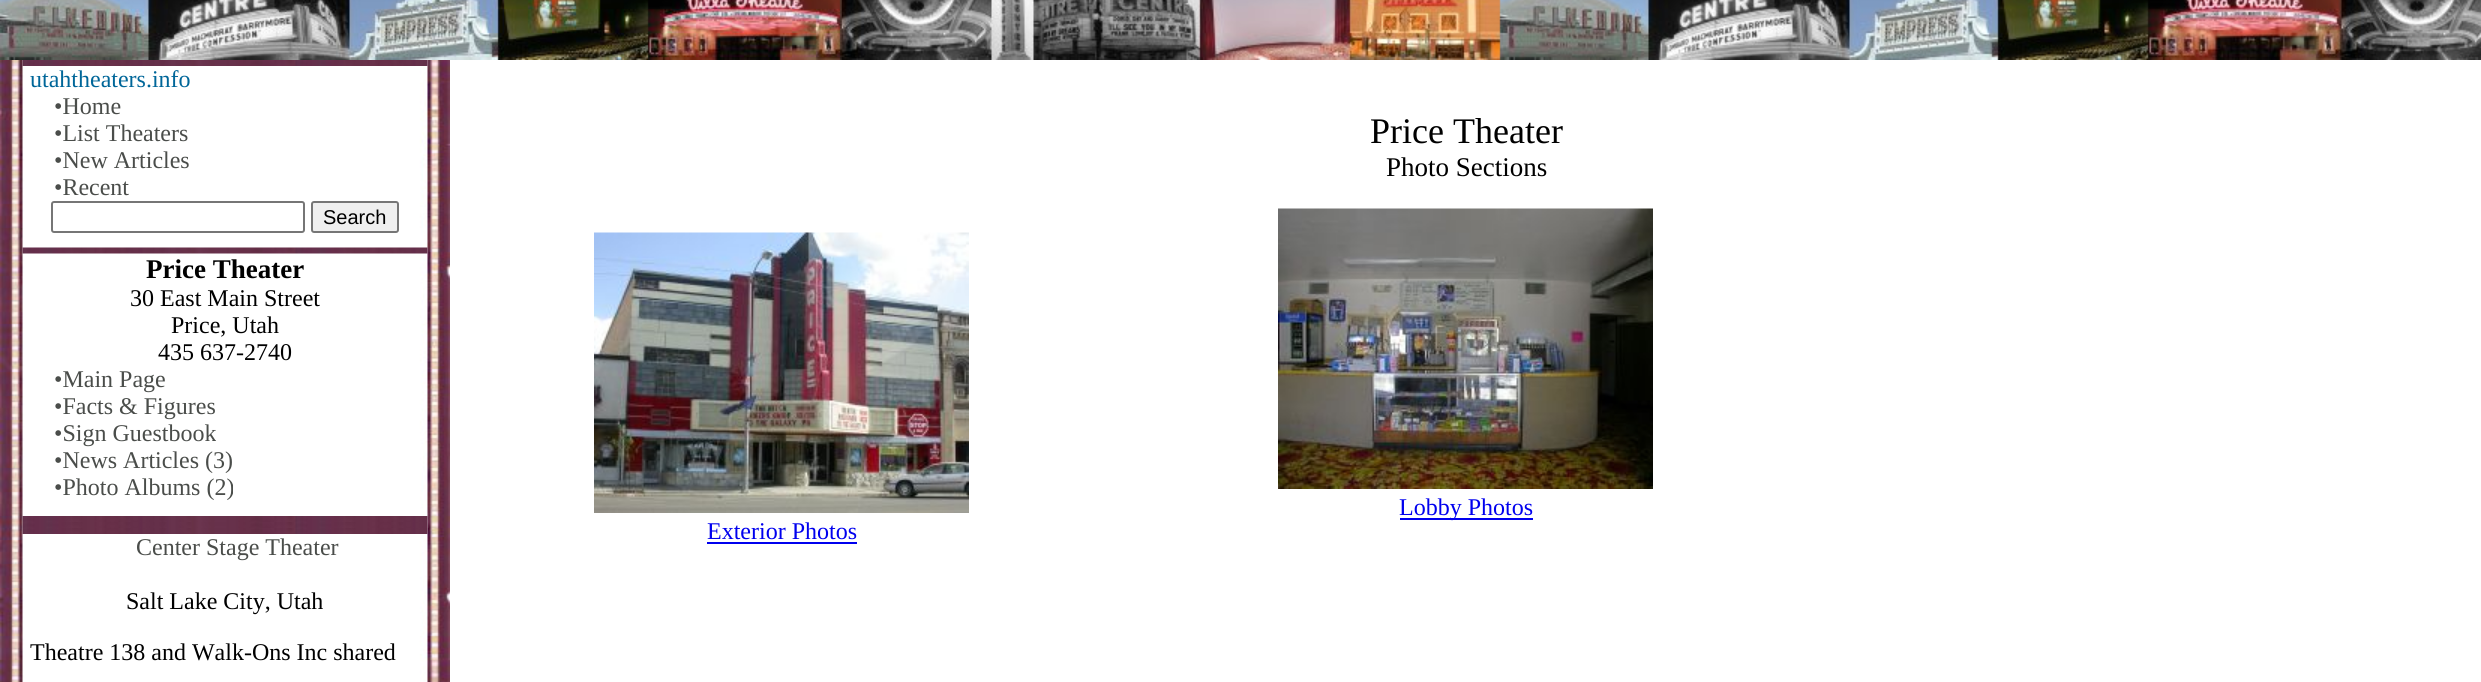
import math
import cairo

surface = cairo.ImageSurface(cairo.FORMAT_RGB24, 2481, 682)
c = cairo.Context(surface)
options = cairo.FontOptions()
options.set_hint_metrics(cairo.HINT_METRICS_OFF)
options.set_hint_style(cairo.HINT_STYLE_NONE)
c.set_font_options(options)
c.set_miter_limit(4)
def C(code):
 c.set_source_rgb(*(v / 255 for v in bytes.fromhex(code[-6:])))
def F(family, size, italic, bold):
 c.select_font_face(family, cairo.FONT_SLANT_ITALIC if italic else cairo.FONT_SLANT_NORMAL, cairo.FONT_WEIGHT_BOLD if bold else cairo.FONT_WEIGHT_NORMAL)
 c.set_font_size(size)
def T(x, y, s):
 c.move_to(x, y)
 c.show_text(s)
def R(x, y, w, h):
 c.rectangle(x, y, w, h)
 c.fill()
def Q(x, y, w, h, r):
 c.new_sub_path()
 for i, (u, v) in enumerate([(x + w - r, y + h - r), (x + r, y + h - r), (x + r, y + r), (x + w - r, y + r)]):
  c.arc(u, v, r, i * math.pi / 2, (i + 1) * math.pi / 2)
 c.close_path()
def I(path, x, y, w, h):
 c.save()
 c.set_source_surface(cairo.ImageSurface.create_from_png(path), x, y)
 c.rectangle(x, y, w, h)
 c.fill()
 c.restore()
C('ffffff')
c.paint()
I('1.png',841,0,1640,60)
I('2.png',0,0,842,60)
I('3.png',0,60,450,622)
I('4.png',22,60,406,6)
F('Liberation Serif',24,0,0)
C('006699')
T(30,87,'utahtheaters.info')
C('4a4d4a')
T(54,114,'•Home')
T(54,141,'•List Theaters')
T(54,168,'•New Articles')
T(54,195,'•Recent')
Q(52,202,252,30,2)
C('767676')
c.stroke()
C('efefef')
Q(312,202,86,30,2)
c.fill_preserve()
C('767676')
c.stroke()
F('Liberation Sans',20,0,0)
C('000000')
T(323,224,'Search')
I('5.png',22,247,406,7)
F('Liberation Serif',27,0,1)
T(146,278,'Price Theater')
F('Liberation Serif',24,0,0)
T(130,306,'30 East Main Street')
T(171,333,'Price, Utah')
T(158,360,'435 637-2740')
C('4a4d4a')
T(54,387,'•Main Page')
T(54,414,'•Facts & Figures')
T(54,441,'•Sign Guestbook')
T(54,468,'•News Articles (3)')
T(54,495,'•Photo Albums (2)')
I('6.png',22,516,406,6)
I('7.png',22,522,406,6)
I('8.png',22,528,406,6)
T(136,555,'Center Stage Theater')
C('000000')
T(126,609,'Salt Lake City, Utah')
T(30,660,'Theatre 138 and Walk-Ons Inc shared')
F('Liberation Serif',36,0,0)
T(1370,143,'Price Theater')
F('Liberation Serif',27,0,0)
T(1386,176,'Photo Sections')
I('9.png',1278,208,375,281)
C('0000ee')
R(1400,518,133,2)
F('Liberation Serif',24,0,0)
T(1399,515,'Lobby Photos')
I('10.png',594,232,375,281)
T(707,539,'Exterior Photos')
R(707,542,150,2)
surface.write_to_png('o.png')
